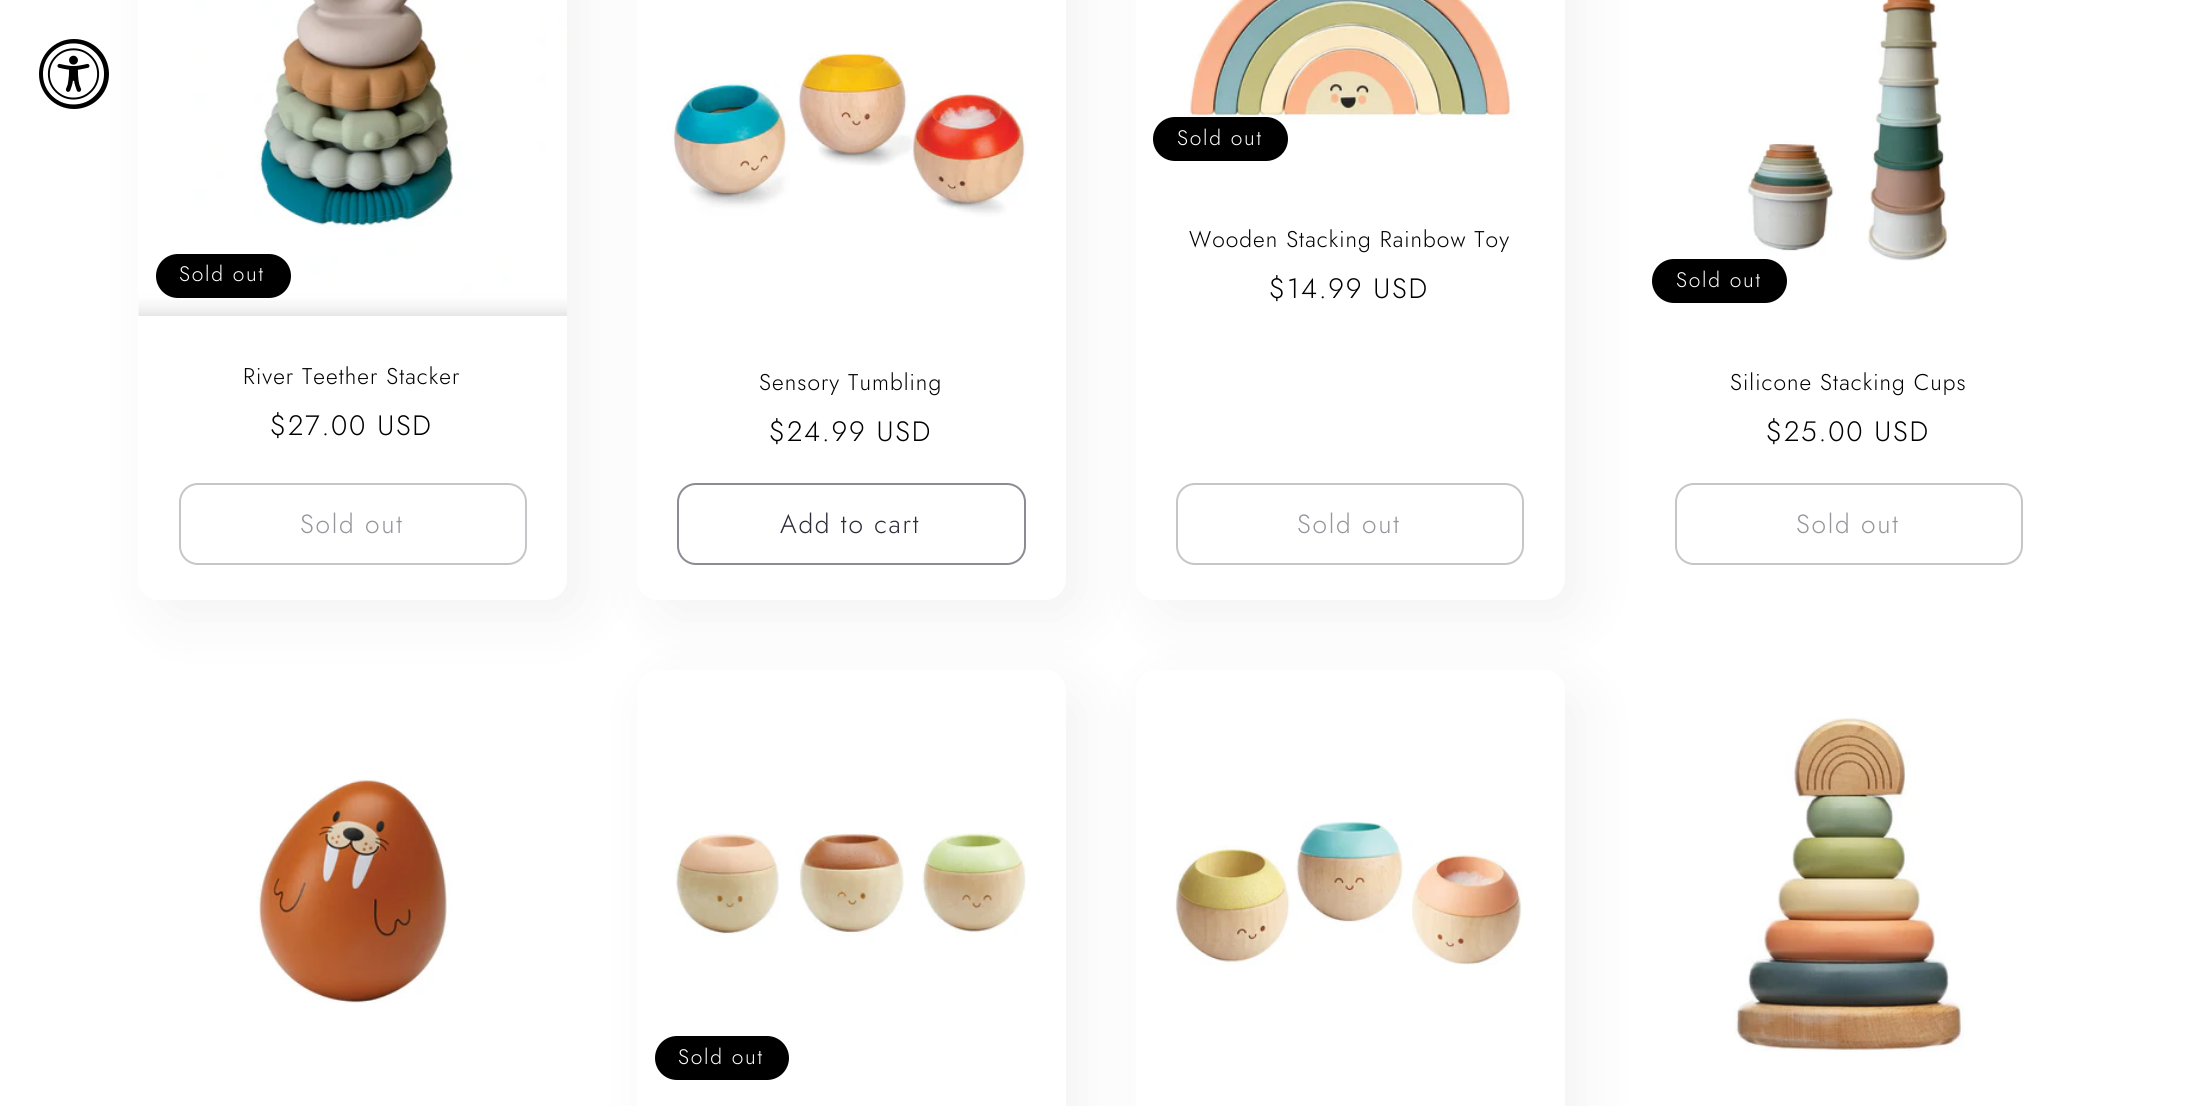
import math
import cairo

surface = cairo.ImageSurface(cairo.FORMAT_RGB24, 2199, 1106)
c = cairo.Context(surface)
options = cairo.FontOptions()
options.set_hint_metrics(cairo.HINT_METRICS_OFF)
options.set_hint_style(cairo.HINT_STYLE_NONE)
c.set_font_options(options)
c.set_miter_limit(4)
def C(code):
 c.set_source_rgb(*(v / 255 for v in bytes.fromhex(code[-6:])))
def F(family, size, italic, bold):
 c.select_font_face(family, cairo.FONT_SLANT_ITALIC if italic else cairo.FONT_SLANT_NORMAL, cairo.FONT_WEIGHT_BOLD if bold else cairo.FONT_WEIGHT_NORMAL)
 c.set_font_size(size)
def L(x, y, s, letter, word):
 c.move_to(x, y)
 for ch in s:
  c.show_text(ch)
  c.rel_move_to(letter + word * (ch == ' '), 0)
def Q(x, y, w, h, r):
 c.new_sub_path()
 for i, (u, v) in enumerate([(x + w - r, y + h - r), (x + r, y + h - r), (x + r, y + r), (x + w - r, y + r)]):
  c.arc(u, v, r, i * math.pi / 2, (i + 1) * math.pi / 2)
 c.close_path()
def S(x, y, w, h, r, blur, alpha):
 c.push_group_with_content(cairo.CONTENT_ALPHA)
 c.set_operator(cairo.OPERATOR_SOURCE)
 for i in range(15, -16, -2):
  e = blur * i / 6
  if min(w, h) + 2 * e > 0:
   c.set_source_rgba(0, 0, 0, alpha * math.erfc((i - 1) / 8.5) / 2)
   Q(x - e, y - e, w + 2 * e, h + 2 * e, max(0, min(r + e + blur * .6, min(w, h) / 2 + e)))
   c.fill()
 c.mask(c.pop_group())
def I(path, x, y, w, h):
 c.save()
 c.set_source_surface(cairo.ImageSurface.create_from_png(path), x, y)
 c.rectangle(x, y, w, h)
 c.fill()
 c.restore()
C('ffffff')
c.paint()
C('000000')
S(156,-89,429,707,21,30.5,.05)
C('000000')
c.arc(74,74,35,0,2 * math.pi)
c.fill()
I('1.png',43,43,61,62)
C('000000')
S(655,-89,428,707,21,30.5,.05)
S(655,688,428,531,21,30.5,.05)
C('ffffff')
Q(138,-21,429,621,21)
c.fill()
I('2.png',138,0,429,316)
C('000000')
Q(157,255,133,42,21)
c.fill_preserve()
c.stroke()
F('Jost Light',21,0,0)
C('ffffff')
L(179,281,'Sold out',1.75,0)
F('Jost Light',22.75,0,0)
C('000000')
L(243,384,'River Teether Stacker',1.05,0)
F('Jost Light',28,0,0)
L(270,435,'$27.00 USD',1.75,0)
Q(180,484,346,80,18)
C('c6c5c9')
c.stroke()
F('Jost Light',26.25,0,0)
C('97959c')
L(300,533,'Sold out',1.75,0)
C('000000')
S(1153,-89,429,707,21,30.5,.05)
S(1153,688,429,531,21,30.5,.05)
C('ffffff')
Q(637,-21,429,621,21)
c.fill()
I('3.png',666,53,362,164)
F('Jost Light',22.75,0,0)
C('000000')
L(759,390,'Sensory Tumbling',1.05,0)
F('Jost Light',28,0,0)
L(769,441,'$24.99 USD',1.75,0)
Q(678,484,347,80,18)
C('8c8a92')
c.stroke()
F('Jost Light',26.25,0,0)
C('2e2a39')
L(780,533,'Add to cart',1.75,0)
C('ffffff')
Q(1136,-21,429,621,21)
c.fill()
I('4.png',1184,0,332,121)
C('000000')
Q(1154,118,133,42,21)
c.fill_preserve()
c.stroke()
F('Jost Light',21,0,0)
C('ffffff')
L(1177,145,'Sold out',1.75,0)
F('Jost Light',22.75,0,0)
C('000000')
L(1189,247,'Wooden Stacking Rainbow Toy',1.05,0)
F('Jost Light',28,0,0)
L(1269,298,'$14.99 USD',1.75,0)
Q(1177,484,346,80,18)
C('c6c5c9')
c.stroke()
F('Jost Light',26.25,0,0)
C('97959c')
L(1297,533,'Sold out',1.75,0)
I('5.png',1747,0,202,261)
C('000000')
Q(1653,260,133,42,21)
c.fill_preserve()
c.stroke()
F('Jost Light',21,0,0)
C('ffffff')
L(1676,287,'Sold out',1.75,0)
F('Jost Light',22.75,0,0)
C('000000')
L(1730,390,'Silicone Stacking Cups',1.05,0)
F('Jost Light',28,0,0)
L(1766,441,'$25.00 USD',1.75,0)
Q(1676,484,346,80,18)
C('c6c5c9')
c.stroke()
F('Jost Light',26.25,0,0)
C('97959c')
L(1796,533,'Sold out',1.75,0)
I('6.png',255,779,196,224)
C('ffffff')
Q(1136,670,429,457,21)
c.fill()
I('7.png',1174,821,348,144)
I('8.png',1730,717,235,335)
Q(637,670,429,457,21)
c.fill()
I('9.png',675,832,351,105)
C('000000')
Q(656,1037,132,42,21)
c.fill_preserve()
c.stroke()
F('Jost Light',21,0,0)
C('ffffff')
L(678,1064,'Sold out',1.75,0)
surface.write_to_png('o.png')
